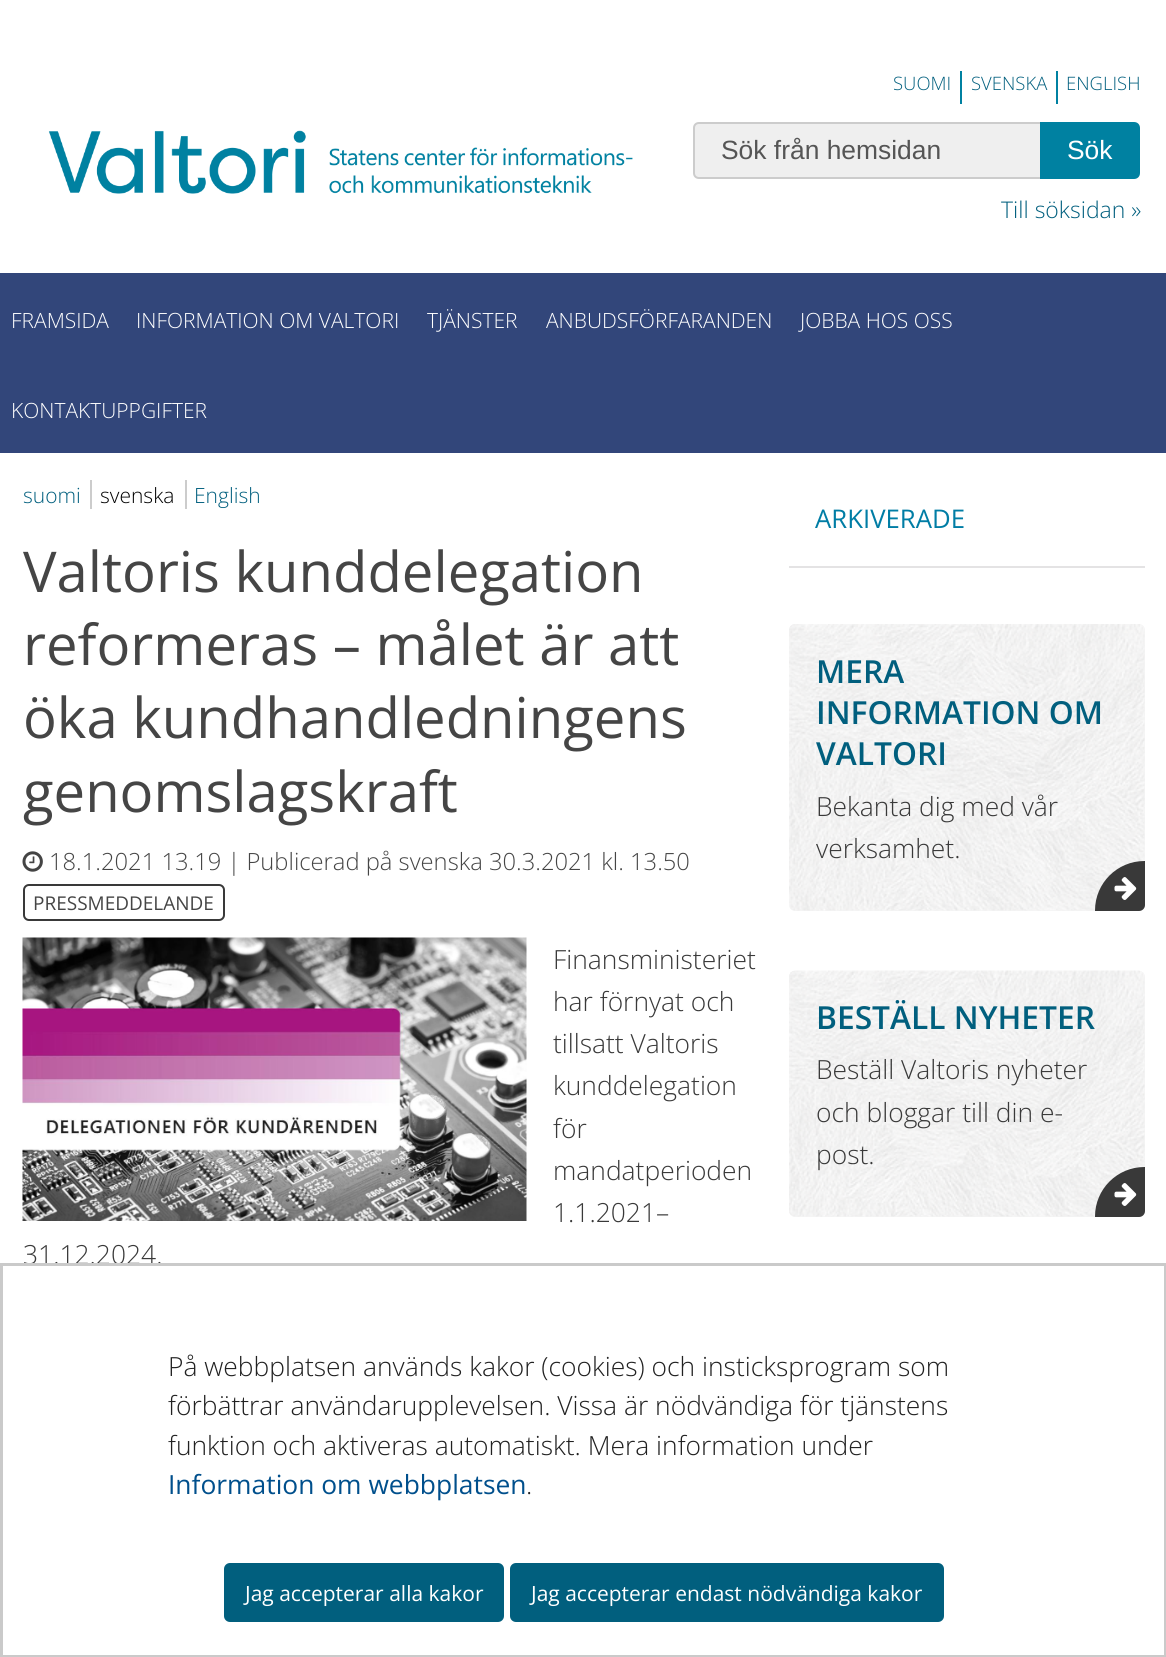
import math
import cairo

surface = cairo.ImageSurface(cairo.FORMAT_RGB24, 1166, 1657)
c = cairo.Context(surface)
options = cairo.FontOptions()
options.set_hint_metrics(cairo.HINT_METRICS_OFF)
options.set_hint_style(cairo.HINT_STYLE_NONE)
c.set_font_options(options)
c.set_miter_limit(4)
def C(code):
 c.set_source_rgb(*(v / 255 for v in bytes.fromhex(code[-6:])))
def F(family, size, italic, bold):
 c.select_font_face(family, cairo.FONT_SLANT_ITALIC if italic else cairo.FONT_SLANT_NORMAL, cairo.FONT_WEIGHT_BOLD if bold else cairo.FONT_WEIGHT_NORMAL)
 c.set_font_size(size)
def T(x, y, s):
 c.move_to(x, y)
 c.show_text(s)
def R(x, y, w, h):
 c.rectangle(x, y, w, h)
 c.fill()
def Q(x, y, w, h, r):
 c.new_sub_path()
 for i, (u, v) in enumerate([(x + w - r, y + h - r), (x + r, y + h - r), (x + r, y + r), (x + w - r, y + r)]):
  c.arc(u, v, r, i * math.pi / 2, (i + 1) * math.pi / 2)
 c.close_path()
def I(path, x, y, w, h):
 c.save()
 c.set_source_surface(cairo.ImageSurface.create_from_png(path), x, y)
 c.rectangle(x, y, w, h)
 c.fill()
 c.restore()
C('ffffff')
c.paint()
I('1.png',48,130,585,64)
C('0081a1')
R(960,71,2,33)
F('Open Sans Light',18.5,0,0)
C('015f7e')
T(893,90,'SUOMI')
C('0081a1')
R(1056,71,2,33)
C('015f7e')
T(971,90,'SVENSKA')
T(1066,90,'ENGLISH')
C('efefef')
c.new_path()
c.move_to(699,123)
c.line_to(1042,123)
c.line_to(1042,178)
c.line_to(699,178)
c.curve_to(696,178,694,176,694,173)
c.line_to(694,128)
c.curve_to(694,125,696,123,699,123)
c.close_path()
c.fill_preserve()
C('cccccc')
c.stroke()
F('Liberation Sans',26.4,0,0)
C('555555')
T(721,159,'Sök från hemsidan')
C('0081a1')
c.new_path()
c.move_to(1040,122)
c.line_to(1134,122)
c.curve_to(1137.5,122,1140,124.5,1140,128)
c.line_to(1140,173)
c.curve_to(1140,176.5,1137.5,179,1134,179)
c.line_to(1040,179)
c.close_path()
c.fill()
C('ffffff')
T(1067,159,'Sök')
F('Open Sans Light',23,0,0)
C('015f7e')
T(1001,218,'Till söksidan »')
C('32467a')
R(0,273,1166,180)
F('Open Sans Light',21,0,0)
C('ffffff')
T(11,328,'FRAMSIDA')
T(136,328,'INFORMATION OM VALTORI')
T(427,328,'TJÄNSTER')
T(546,328,'ANBUDSFÖRFARANDEN')
T(800,328,'JOBBA HOS OSS')
T(11,418,'KONTAKTUPPGIFTER')
C('015f7e')
T(23,503,'suomi')
C('cccccc')
R(90,480,2,29)
C('000000')
T(100,503,'svenska')
C('cccccc')
R(185,480,2,29)
C('015f7e')
T(194,503,'English')
F('Open Sans',56.25,0,0)
C('454545')
T(23,592,'Valtoris kunddelegation')
T(23,665,'reformeras – målet är att')
T(23,738,'öka kundhandledningens')
T(23,812,'genomslagskraft')
I('2.png',22,851,21,21)
F('Open Sans Light',23.75,0,0)
T(49,870,'18.1.2021 13.19 | Publicerad på svenska 30.3.2021 kl. 13.50')
Q(24,885,200,35,5)
C('393939')
c.stroke()
F('Open Sans',19,0,0)
C('454545')
T(33,910,'PRESSMEDDELANDE')
I('3.png',22,937,505,284)
F('Open Sans Light',26.4,0,0)
C('393939')
T(553,969,'Finansministeriet')
T(553,1011,'har förnyat och')
T(553,1053,'tillsatt Valtoris')
T(553,1095,'kunddelegation')
T(553,1138,'för')
T(553,1180,'mandatperioden')
T(553,1222,'1.1.2021–')
T(23,1264,'31.12.2024.')
C('e4e3e4')
R(789,566,356,2)
F('Open Sans',25.75,0,0)
C('007da5')
T(815,528,'ARKIVERADE')
C('f5f5f5')
Q(789,624,356,287,6)
c.fill()
I('4.png',789,624,356,287)
F('Open Sans SemiBold',31.75,0,0)
C('015f7e')
T(816,683,'MERA')
T(816,724,'INFORMATION OM')
T(816,765,'VALTORI')
F('Open Sans Light',26.4,0,0)
C('393939')
T(816,816,'Bekanta dig med vår')
T(816,858,'verksamhet.')
c.save()
Q(789,624,356,287,6)
c.clip()
c.arc(1144.5,910.5,49.5,0,2 * math.pi)
c.fill()
c.restore()
I('5.png',1114,877,23,23)
C('f5f5f5')
Q(789,971,356,246,6)
c.fill()
I('6.png',789,970,356,247)
F('Open Sans SemiBold',31.75,0,0)
C('015f7e')
T(816,1029,'BESTÄLL NYHETER')
F('Open Sans Light',26.4,0,0)
C('393939')
T(816,1079,'Beställ Valtoris nyheter')
T(816,1122,'och bloggar till din e-')
T(816,1164,'post.')
c.save()
Q(789,971,356,246,6)
c.clip()
c.arc(1144.5,1216.5,49.5,0,2 * math.pi)
c.fill()
c.restore()
I('5.png',1114,1183,23,23)
c.rectangle(1.5,1264.5,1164,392)
C('cacaca')
c.set_line_width(3)
c.stroke()
C('212121')
T(168,1376,'På webbplatsen används kakor (cookies) och insticksprogram som')
T(168,1415,'förbättrar användarupplevelsen. Vissa är nödvändiga för tjänstens')
T(168,1455,'funktion och aktiveras automatiskt. Mera information under')
F('Open Sans',26.4,0,0)
C('004f8c')
T(168,1494,'Information om webbplatsen')
F('Open Sans Light',26.4,0,0)
C('212121')
T(526,1494,'.')
C('015f7e')
Q(224,1563,280,59,6)
c.fill()
F('Open Sans',21,0,0)
C('ffffff')
T(245,1601,'Jag accepterar alla kakor')
C('015f7e')
Q(510,1563,434,59,6)
c.fill()
C('ffffff')
T(531,1601,'Jag accepterar endast nödvändiga kakor')
surface.write_to_png('o.png')
